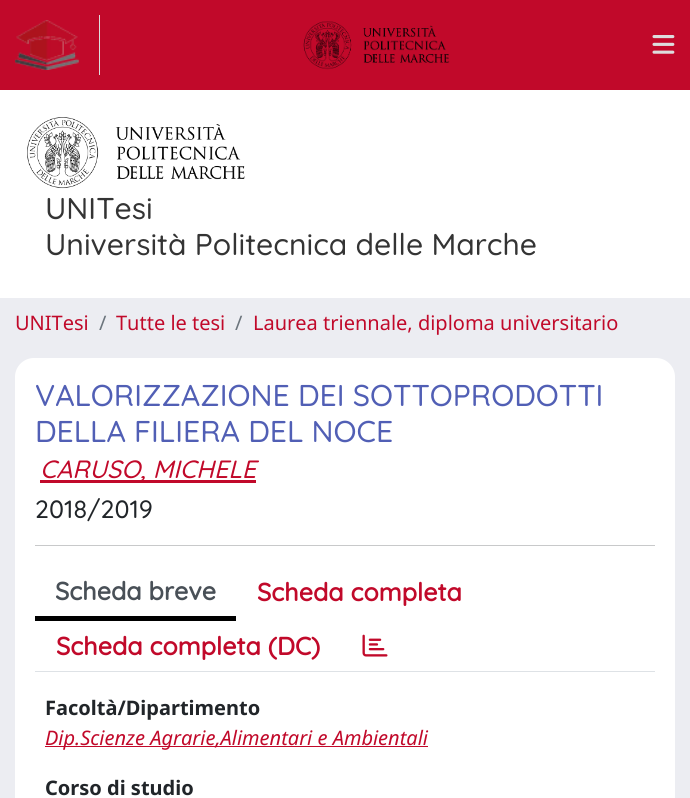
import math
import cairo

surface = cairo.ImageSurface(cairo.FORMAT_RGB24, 690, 798)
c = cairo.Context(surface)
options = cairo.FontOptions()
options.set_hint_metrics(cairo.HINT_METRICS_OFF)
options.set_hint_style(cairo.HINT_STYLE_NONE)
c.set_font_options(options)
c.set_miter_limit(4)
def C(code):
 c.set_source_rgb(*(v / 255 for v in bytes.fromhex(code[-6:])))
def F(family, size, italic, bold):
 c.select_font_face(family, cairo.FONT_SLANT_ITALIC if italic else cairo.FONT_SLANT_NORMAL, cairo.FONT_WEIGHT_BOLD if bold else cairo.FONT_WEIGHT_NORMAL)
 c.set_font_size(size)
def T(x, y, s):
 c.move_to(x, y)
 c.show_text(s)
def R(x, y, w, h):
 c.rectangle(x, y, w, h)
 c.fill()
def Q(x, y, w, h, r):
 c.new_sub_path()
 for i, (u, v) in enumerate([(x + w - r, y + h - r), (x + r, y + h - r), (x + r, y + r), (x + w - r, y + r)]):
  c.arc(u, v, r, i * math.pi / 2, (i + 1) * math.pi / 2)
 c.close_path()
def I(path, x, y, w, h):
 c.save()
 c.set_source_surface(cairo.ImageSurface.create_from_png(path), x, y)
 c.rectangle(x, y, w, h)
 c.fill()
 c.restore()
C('ecedf2')
c.paint()
C('c1092a')
R(0,0,690,90)
C('dddddd')
R(99,15,1,60)
I('1.png',15,20,64,50)
I('2.png',303,21,147,49)
I('3.png',652,35,23,19)
C('ffffff')
R(0,90,690,208)
I('4.png',27,117,218,72)
F('Quicksand Medium',30.1,0,0)
C('343434')
T(45,219,'UNITesi')
T(45,255,'Università Politecnica delle Marche')
F('Noto Sans',20,0,0)
C('c1092a')
T(15,330,'UNITesi')
C('6c757d')
T(99,330,'/')
C('c1092a')
T(116,330,'Tutte le tesi')
C('6c757d')
T(235,330,'/')
C('c1092a')
T(253,330,'Laurea triennale, diploma universitario')
C('ffffff')
Q(15,358,660,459,19)
c.fill()
F('Quicksand Medium',30.1,0,0)
C('515fb5')
T(35,406,'VALORIZZAZIONE DEI SOTTOPRODOTTI')
T(35,442,'DELLA FILIERA DEL NOCE')
C('c1092a')
R(40,480,216,3)
F('Quicksand Medium',25,1,0)
T(40,478,'CARUSO, MICHELE')
F('Quicksand Medium',25,0,0)
C('212529')
T(35,518,'2018/2019')
C('c8c9ca')
R(35,545,620,1)
C('dee2e6')
R(35,671,620,1)
C('000000')
R(35,616,201,5)
F('Quicksand',25,0,1)
C('495057')
T(55,600,'Scheda breve')
C('c1092a')
T(257,601,'Scheda completa')
T(56,655,'Scheda completa (DC)')
I('5.png',362,634,26,23)
F('Noto Sans',20,0,1)
C('212529')
T(45,715,'Facoltà/Dipartimento')
C('c1092a')
R(45,746,383,1)
F('Noto Sans',20,1,0)
T(45,745,'Dip.Scienze Agrarie,Alimentari e Ambientali')
F('Noto Sans',20,0,1)
C('212529')
T(45,795,'Corso di studio')
surface.write_to_png('o.png')
